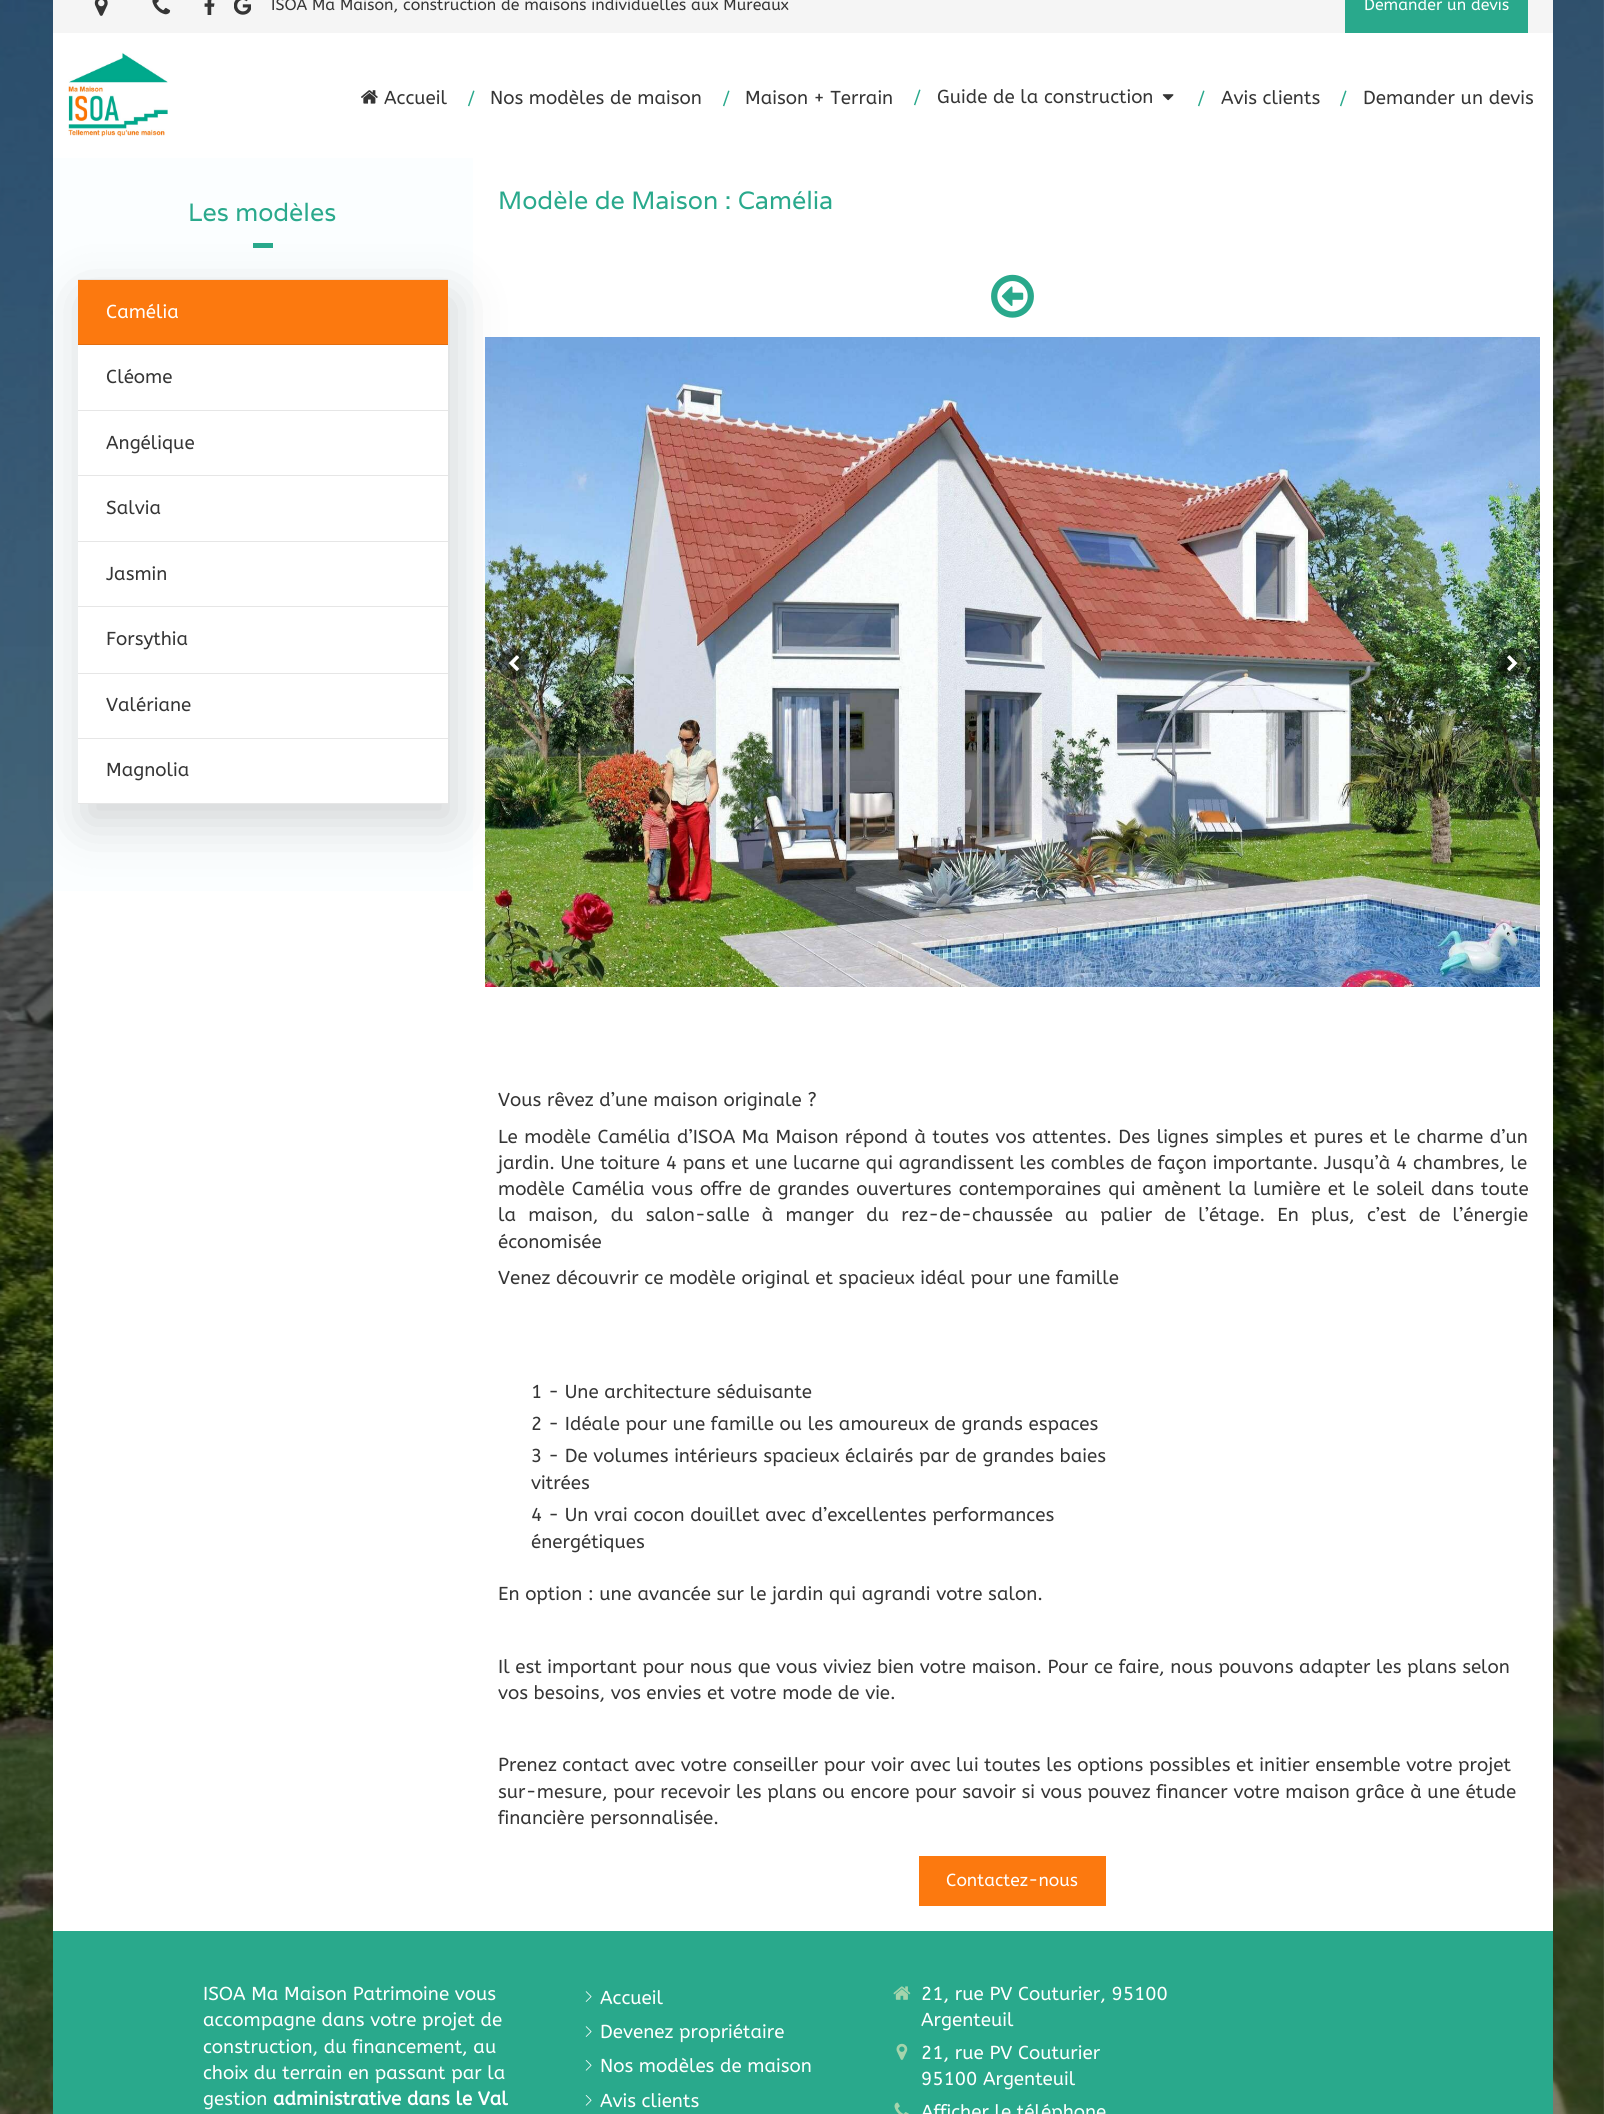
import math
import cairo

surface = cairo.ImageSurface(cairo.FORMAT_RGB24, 1604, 2114)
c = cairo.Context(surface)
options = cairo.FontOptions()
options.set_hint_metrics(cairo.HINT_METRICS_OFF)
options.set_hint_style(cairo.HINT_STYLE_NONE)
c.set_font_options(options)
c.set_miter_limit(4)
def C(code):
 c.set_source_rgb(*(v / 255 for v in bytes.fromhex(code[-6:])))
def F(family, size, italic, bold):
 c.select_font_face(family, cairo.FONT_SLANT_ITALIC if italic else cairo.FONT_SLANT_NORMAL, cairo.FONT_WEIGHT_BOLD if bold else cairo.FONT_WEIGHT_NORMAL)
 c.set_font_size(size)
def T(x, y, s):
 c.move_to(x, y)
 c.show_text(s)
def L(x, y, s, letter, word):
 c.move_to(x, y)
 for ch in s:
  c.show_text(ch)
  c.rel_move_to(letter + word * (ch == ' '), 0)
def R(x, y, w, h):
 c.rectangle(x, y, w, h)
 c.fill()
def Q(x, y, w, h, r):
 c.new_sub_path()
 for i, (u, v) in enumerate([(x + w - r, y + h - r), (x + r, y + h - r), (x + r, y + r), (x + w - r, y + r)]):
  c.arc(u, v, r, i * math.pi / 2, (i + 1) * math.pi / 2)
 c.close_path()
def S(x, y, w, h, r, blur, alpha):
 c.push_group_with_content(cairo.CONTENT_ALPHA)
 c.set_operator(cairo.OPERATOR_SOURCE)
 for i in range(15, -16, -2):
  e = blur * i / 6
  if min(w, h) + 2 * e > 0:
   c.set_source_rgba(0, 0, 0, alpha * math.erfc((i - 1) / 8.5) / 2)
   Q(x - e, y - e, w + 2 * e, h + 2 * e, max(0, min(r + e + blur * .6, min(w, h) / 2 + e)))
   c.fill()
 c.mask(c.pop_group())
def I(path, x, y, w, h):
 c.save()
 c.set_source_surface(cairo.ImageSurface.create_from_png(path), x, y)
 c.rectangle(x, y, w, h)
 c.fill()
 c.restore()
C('ffffff')
c.paint()
I('1.png',0,0,1604,2114)
C('ffffff')
R(53,33,1500,1898)
C('f5f5f5')
R(53,0,1500,33)
I('2.png',94,0,14,16)
I('3.png',152,0,19,15)
I('4.png',204,0,11,15)
I('5.png',234,0,17,15)
F('ABeeZee',15.95,0,0)
C('353535')
T(271,10,'ISOA Ma Maison, construction de maisons individuelles aux Mureaux')
C('29a98c')
R(1345,0,183,33)
C('ffffff')
T(1364,10,'Demander un devis')
I('6.png',68,52,100,85)
I('7.png',361,90,17,14)
F('ABeeZee',18.75,0,0)
C('353535')
T(384,104,'Accueil')
C('29a98c')
T(467,105,'/')
C('353535')
T(490,104,'Nos modèles de maison')
C('29a98c')
T(722,105,'/')
C('353535')
T(745,104,'Maison + Terrain')
C('29a98c')
T(913,104,'/')
C('353535')
T(937,103,'Guide de la construction')
I('8.png',1162,94,12,7)
C('29a98c')
T(1197,105,'/')
C('353535')
T(1221,104,'Avis clients')
C('29a98c')
T(1339,105,'/')
C('353535')
T(1363,104,'Demander un devis')
C('fbfeff')
R(53,158,420,733)
F('Varela',25,0,0)
C('29a98c')
T(188,221,'Les modèles')
I('10.png',485,337,1055,650)
C('2f2f2f')
S(84,298,370,525,0,25,.2)
C('29a98c')
R(253,243,20,5)
C('ffffff')
R(78,345,370,458)
C('e6e6e6')
R(78,279,370,1)
C('fc790f')
R(78,280,370,64)
C('e36d0e')
R(78,344,370,1)
F('ABeeZee',18.75,0,0)
C('ffffff')
T(106,318,'Camélia')
C('e6e6e6')
R(78,410,370,1)
C('353535')
T(106,383,'Cléome')
C('e6e6e6')
R(78,475,370,1)
C('353535')
T(106,449,'Angélique')
C('e6e6e6')
R(78,541,370,1)
C('353535')
T(106,514,'Salvia')
C('e6e6e6')
R(78,606,370,1)
C('353535')
T(106,580,'Jasmin')
C('e6e6e6')
R(78,673,370,1)
C('353535')
T(106,645,'Forsythia')
C('e6e6e6')
R(78,738,370,1)
C('353535')
T(106,711,'Valériane')
C('e6e6e6')
R(78,803,370,1)
C('353535')
T(106,776,'Magnolia')
F('Varela',25,0,0)
C('29a98c')
T(498,209,'Modèle de Maison : Camélia')
I('9.png',991,274,43,44)
c.set_source_rgba(0,0,0,0.5)
c.arc(513.5,663.5,15.5,0,2 * math.pi)
c.fill()
I('11.png',509,655,11,16)
Q(1496,648,32,31,15.5)
c.fill()
I('12.png',1507,655,11,16)
F('ABeeZee',18.75,0,0)
C('353535')
T(498,1106,'Vous rêvez d’une maison originale ?')
L(498,1143,'Le modèle Camélia d’ISOA Ma Maison répond à toutes vos attentes. Des lignes simples et pures et le charme d’un',0,.9)
L(498,1169,'jardin. Une toiture 4 pans et une lucarne qui agrandissent les combles de façon importante. Jusqu’à 4 chambres, le',0,.1)
L(498,1195,'modèle Camélia vous offre de grandes ouvertures contemporaines qui amènent la lumière et le soleil dans toute',0,1.4)
L(498,1221,'la maison, du salon-salle à manger du rez-de-chaussée au palier de l’étage. En plus, c’est de l’énergie',0,6.6)
T(498,1248,'économisée')
T(498,1284,'Venez découvrir ce modèle original et spacieux idéal pour une famille')
T(531,1398,'1 - Une architecture séduisante')
T(531,1430,'2 - Idéale pour une famille ou les amoureux de grands espaces')
T(531,1462,'3 - De volumes intérieurs spacieux éclairés par de grandes baies')
T(531,1489,'vitrées')
T(531,1521,'4 - Un vrai cocon douillet avec d’excellentes performances')
T(531,1548,'énergétiques')
T(498,1600,'En option : une avancée sur le jardin qui agrandi votre salon.')
T(498,1673,'Il est important pour nous que vous viviez bien votre maison. Pour ce faire, nous pouvons adapter les plans selon')
T(498,1699,'vos besoins, vos envies et votre mode de vie.')
T(498,1771,'Prenez contact avec votre conseiller pour voir avec lui toutes les options possibles et initier ensemble votre projet')
T(498,1798,'sur-mesure, pour recevoir les plans ou encore pour savoir si vous pouvez financer votre maison grâce à une étude')
T(498,1824,'financière personnalisée.')
C('fc790f')
R(919,1856,187,50)
F('ABeeZee',17.5,0,0)
C('ffffff')
T(946,1886,'Contactez-nous')
C('29a98c')
R(53,1931,1500,183)
F('ABeeZee',18.75,0,0)
C('ffffff')
T(203,2000,'ISOA Ma Maison Patrimoine vous')
T(203,2026,'accompagne dans votre projet de')
T(203,2053,'construction, du financement, au')
T(203,2079,'choix du terrain en passant par la')
T(203,2105,'gestion')
F('ABeeZee',18.75,0,1)
T(273,2105,'administrative dans le Val')
I('13.png',585,1991,7,11)
F('ABeeZee',18.75,0,0)
T(600,2004,'Accueil')
I('13.png',585,2026,7,11)
T(600,2038,'Devenez propriétaire')
I('14.png',585,2060,7,11)
T(600,2072,'Nos modèles de maison')
I('14.png',585,2095,7,11)
T(600,2107,'Avis clients')
I('15.png',893,1986,18,14)
T(921,2000,'21, rue PV Couturier, 95100')
T(921,2026,'Argenteuil')
I('16.png',896,2043,12,17)
T(921,2059,'21, rue PV Couturier')
T(921,2085,'95100 Argenteuil')
I('17.png',894,2102,15,12)
T(921,2118,'Afficher le téléphone')
surface.write_to_png('o.png')
